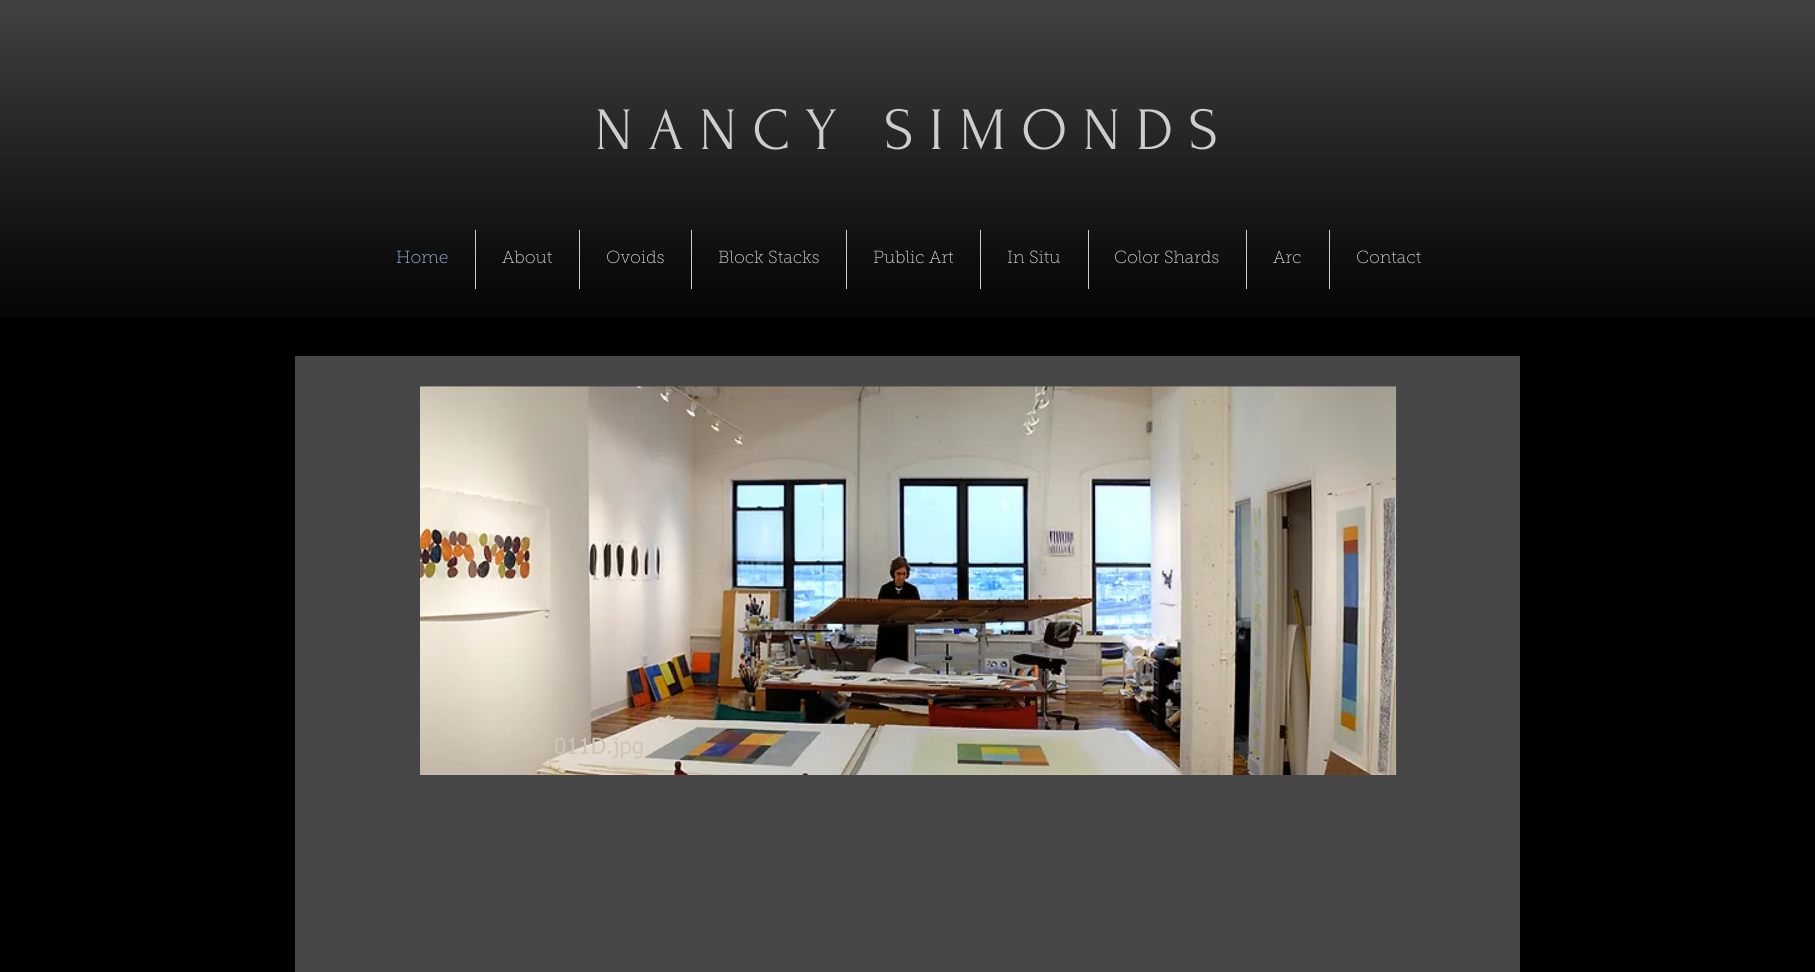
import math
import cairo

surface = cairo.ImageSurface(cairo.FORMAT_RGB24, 1815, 972)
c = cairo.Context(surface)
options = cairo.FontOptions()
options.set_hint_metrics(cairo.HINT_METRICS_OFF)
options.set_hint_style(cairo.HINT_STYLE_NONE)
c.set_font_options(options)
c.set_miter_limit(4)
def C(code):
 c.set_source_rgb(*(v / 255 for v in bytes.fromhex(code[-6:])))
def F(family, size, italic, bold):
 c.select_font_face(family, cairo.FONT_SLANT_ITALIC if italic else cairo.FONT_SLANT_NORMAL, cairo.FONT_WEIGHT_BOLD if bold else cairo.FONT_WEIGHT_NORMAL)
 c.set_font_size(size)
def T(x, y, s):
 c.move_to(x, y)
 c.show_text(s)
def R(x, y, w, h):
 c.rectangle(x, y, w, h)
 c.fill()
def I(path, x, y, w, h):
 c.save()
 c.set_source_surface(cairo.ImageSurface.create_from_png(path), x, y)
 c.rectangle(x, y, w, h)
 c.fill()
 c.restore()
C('000000')
c.paint()
I('1.png',0,0,1815,317)
F('Forum',60,0,0)
C('cecccc')
T(595,149,'N A N C Y   S I M O N D S')
F('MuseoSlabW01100 Thin',17.5,0,0)
C('98b5d4')
T(396,263,'Home')
C('cecccc')
R(475,230,1,59)
T(502,263,'About')
R(579,230,1,59)
T(606,263,'Ovoids')
R(691,230,1,59)
T(718,263,'Block Stacks')
R(846,230,1,59)
T(873,263,'Public Art')
R(980,230,1,59)
T(1007,263,'In Situ')
R(1088,230,1,59)
T(1114,263,'Color Shards')
R(1246,230,1,59)
T(1273,263,'Arc')
R(1329,230,1,59)
T(1356,263,'Contact')
C('474646')
R(295,356,1225,616)
I('2.png',420,386,977,389)
F('tahoma',22.5,0,0)
C('cfc4b5')
T(554,754,'011D.jpg')
surface.write_to_png('o.png')
